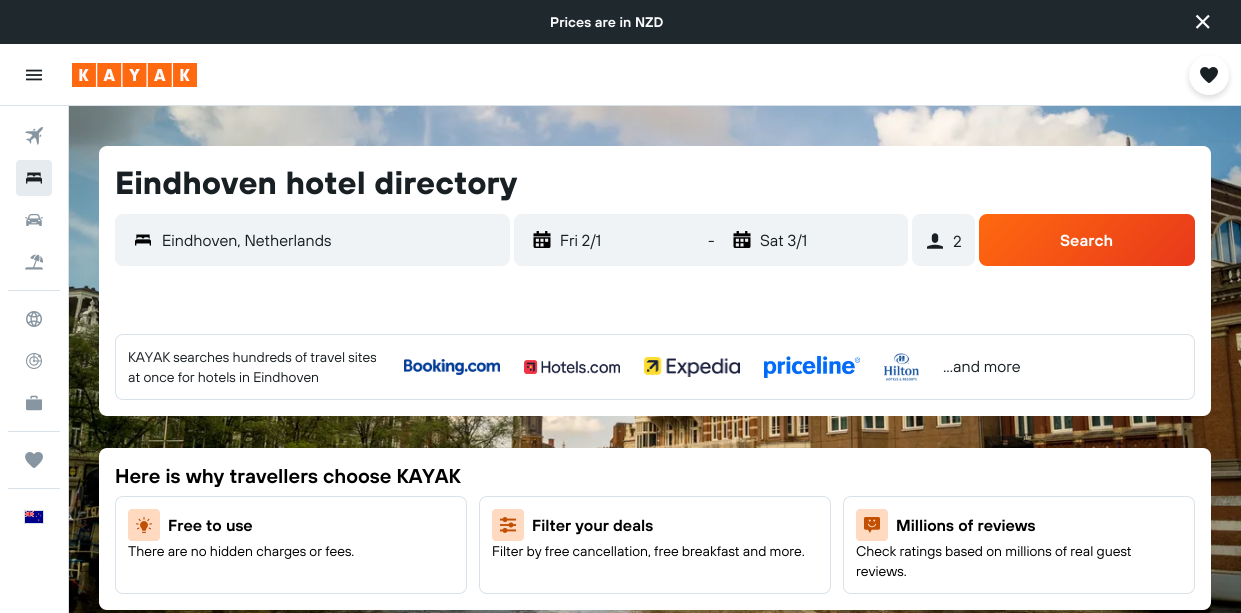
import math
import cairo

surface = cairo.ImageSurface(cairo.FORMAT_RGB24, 1241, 613)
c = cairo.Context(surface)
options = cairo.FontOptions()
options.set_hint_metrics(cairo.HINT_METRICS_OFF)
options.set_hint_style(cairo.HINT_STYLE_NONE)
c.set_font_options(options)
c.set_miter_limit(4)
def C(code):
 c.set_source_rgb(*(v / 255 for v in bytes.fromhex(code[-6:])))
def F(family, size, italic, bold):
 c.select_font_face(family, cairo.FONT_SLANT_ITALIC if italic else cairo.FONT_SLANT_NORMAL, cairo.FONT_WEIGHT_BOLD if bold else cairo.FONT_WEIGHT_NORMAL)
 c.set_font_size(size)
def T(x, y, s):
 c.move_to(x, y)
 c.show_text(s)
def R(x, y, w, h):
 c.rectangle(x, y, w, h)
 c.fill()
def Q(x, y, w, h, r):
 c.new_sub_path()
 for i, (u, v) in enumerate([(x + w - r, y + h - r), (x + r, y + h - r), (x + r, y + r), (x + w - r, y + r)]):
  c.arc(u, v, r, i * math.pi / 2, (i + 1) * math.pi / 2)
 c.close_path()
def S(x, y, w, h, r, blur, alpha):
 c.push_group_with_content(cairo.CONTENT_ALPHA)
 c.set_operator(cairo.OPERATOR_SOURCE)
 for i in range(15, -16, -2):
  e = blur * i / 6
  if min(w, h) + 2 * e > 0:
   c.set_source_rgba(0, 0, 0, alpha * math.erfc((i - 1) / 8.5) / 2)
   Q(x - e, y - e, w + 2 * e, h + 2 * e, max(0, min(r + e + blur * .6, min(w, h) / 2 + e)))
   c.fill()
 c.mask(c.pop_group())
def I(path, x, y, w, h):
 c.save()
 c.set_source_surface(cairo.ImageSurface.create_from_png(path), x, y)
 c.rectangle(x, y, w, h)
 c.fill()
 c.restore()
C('ffffff')
c.paint()
C('1f282d')
R(0,0,1241,44)
F('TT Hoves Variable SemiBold',14,0,0)
C('f9fafb')
T(550,27,'Prices are in NZD')
I('1.png',1195,14,15,15)
C('d9e2e8')
R(0,105,1241,1)
I('2.png',26,69,16,12)
I('3.png',72,63,125,24)
I('14.png',69,106,1172,507)
C('192024')
S(1189,58,40,40,20,3,.16)
C('ffffff')
c.arc(1209,75,20,0,2 * math.pi)
c.fill()
I('4.png',1200,67,18,16)
C('d9e2e8')
R(68,106,1,507)
I('5.png',25,127,18,18)
C('e6ebef')
Q(16,160,36,36,4)
c.fill()
I('6.png',26,172,16,12)
I('7.png',25,213,18,13)
I('8.png',25,254,18,16)
C('d9e2e8')
R(8,290,52,1)
I('9.png',26,311,16,16)
I('10.png',26,353,16,16)
I('11.png',26,395,16,16)
R(8,431,52,1)
I('12.png',25,452,18,16)
R(8,488,52,1)
c.rectangle(24.5,510.5,19,13)
c.set_line_width(1)
c.stroke()
I('13.png',25,511,18,12)
C('ffffff')
Q(99,146,1112,270,8)
c.fill()
F('TT Hoves Variable',32,0,1)
C('192024')
T(115,194,'Eindhoven hotel directory')
C('f0f3f5')
Q(115.5,214.5,394,51,7.5)
c.fill_preserve()
c.stroke()
I('15.png',135,234,16,12)
F('TT Hoves Variable',16,0,0)
C('192024')
T(162,246,'Eindhoven, Netherlands')
C('f0f3f5')
Q(514,214,394,52,8)
c.fill()
Q(514,214,194,52,8)
c.fill()
I('16.png',533,231,18,17)
C('192024')
T(560,246,'Fri 2/1')
T(708,246,'-')
C('f0f3f5')
Q(714,214,194,52,8)
c.fill()
I('16.png',733,231,18,17)
C('192024')
T(760,246,'Sat 3/1')
C('f0f3f5')
Q(912,214,63,52,8)
c.fill()
I('17.png',927,233,16,16)
C('192024')
T(953,247,'2')
gradient = cairo.LinearGradient(1020,173,1154,307)
gradient.add_color_stop_rgba(0,1,0.412,0.059,1)
gradient.add_color_stop_rgba(1,0.91,0.22,0.106,1)
c.set_source(gradient)
Q(979,214,216,52,8)
c.fill()
F('TT Hoves Variable SemiBold',16,0,0)
C('ffffff')
T(1060,246,'Search')
Q(115.5,334.5,1079,65,7.5)
C('d9e2e8')
c.stroke()
F('TT Hoves Variable',14,0,0)
C('192024')
T(128,362,'KAYAK searches hundreds of travel sites')
T(128,382,'at once for hotels in Eindhoven')
I('18.png',404,359,96,16)
I('19.png',524,360,96,14)
I('20.png',644,357,96,20)
I('21.png',764,356,96,22)
I('22.png',884,353,35,28)
F('TT Hoves Variable',16,0,0)
T(943,372,'...and more')
C('ffffff')
Q(99,448,1112,162,8)
c.fill()
F('TT Hoves Variable SemiBold',20,0,0)
C('000000')
T(115,483,'Here is why travellers choose KAYAK')
Q(115.5,496.5,351,97,7.5)
C('d9e2e8')
c.stroke()
C('ffdac1')
Q(128,509,32,32,4)
c.fill()
I('23.png',136,517,16,16)
F('TT Hoves Variable SemiBold',16,0,0)
C('000000')
T(168,531,'Free to use')
F('TT Hoves Variable',14,0,0)
T(128,556,'There are no hidden charges or fees.')
Q(479.5,496.5,351,97,7.5)
C('d9e2e8')
c.stroke()
C('ffdac1')
Q(492,509,32,32,4)
c.fill()
I('24.png',500,517,16,16)
F('TT Hoves Variable SemiBold',16,0,0)
C('000000')
T(532,531,'Filter your deals')
F('TT Hoves Variable',14,0,0)
T(492,556,'Filter by free cancellation, free breakfast and more.')
Q(843.5,496.5,351,97,7.5)
C('d9e2e8')
c.stroke()
C('ffdac1')
Q(856,509,32,32,4)
c.fill()
I('25.png',864,517,16,16)
F('TT Hoves Variable SemiBold',16,0,0)
C('000000')
T(896,531,'Millions of reviews')
F('TT Hoves Variable',14,0,0)
T(856,556,'Check ratings based on millions of real guest')
T(856,576,'reviews.')
surface.write_to_png('o.png')
